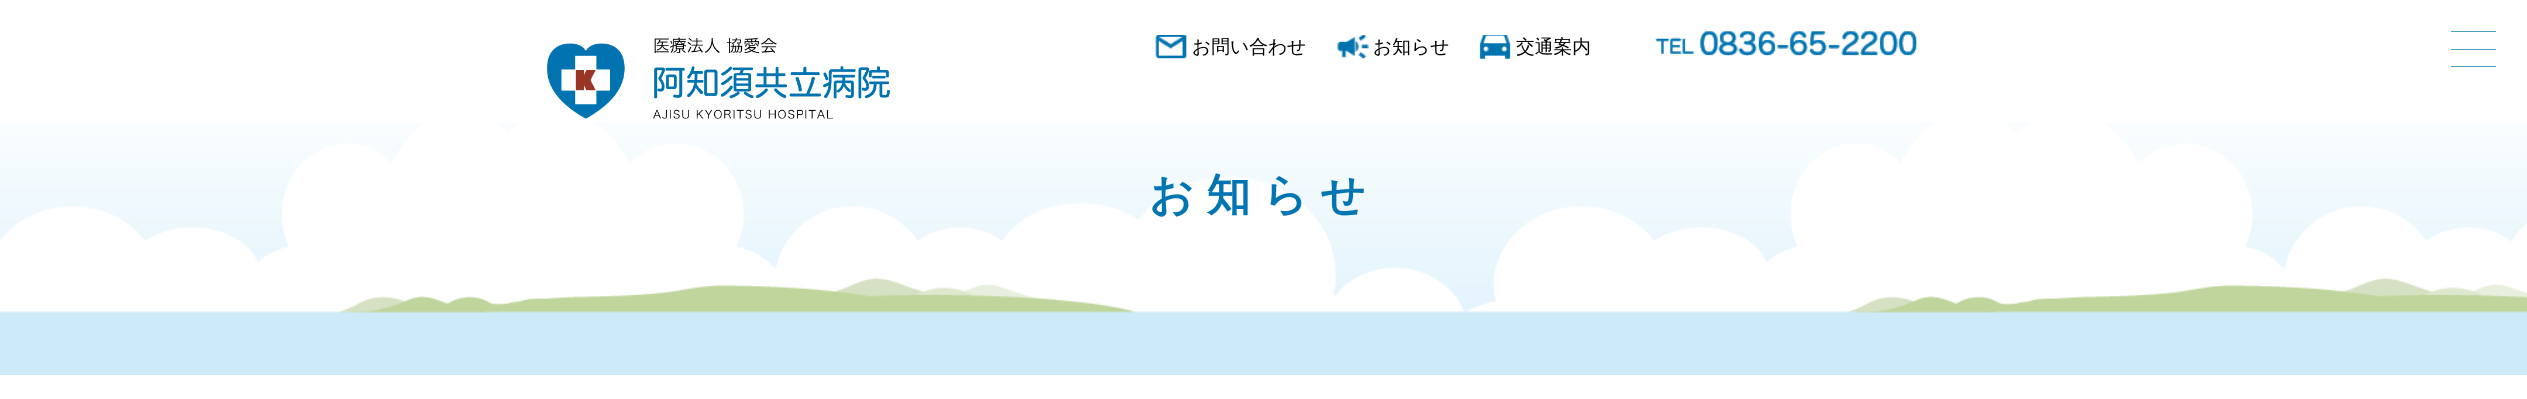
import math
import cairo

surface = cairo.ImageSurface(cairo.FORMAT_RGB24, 2527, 399)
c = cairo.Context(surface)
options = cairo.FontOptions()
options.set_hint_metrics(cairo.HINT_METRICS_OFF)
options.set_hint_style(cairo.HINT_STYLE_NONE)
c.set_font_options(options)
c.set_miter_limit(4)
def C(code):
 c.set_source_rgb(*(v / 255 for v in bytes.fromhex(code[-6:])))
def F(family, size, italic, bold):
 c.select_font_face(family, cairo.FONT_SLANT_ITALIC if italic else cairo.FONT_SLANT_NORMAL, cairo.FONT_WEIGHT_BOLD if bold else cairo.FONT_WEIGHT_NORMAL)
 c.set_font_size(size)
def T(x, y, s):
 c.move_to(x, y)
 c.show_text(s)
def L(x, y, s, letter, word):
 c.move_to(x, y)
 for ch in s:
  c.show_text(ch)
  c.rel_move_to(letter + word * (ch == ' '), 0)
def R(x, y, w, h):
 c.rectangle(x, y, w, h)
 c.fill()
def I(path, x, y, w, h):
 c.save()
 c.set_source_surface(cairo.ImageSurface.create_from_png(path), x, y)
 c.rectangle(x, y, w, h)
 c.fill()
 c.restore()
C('ffffff')
c.paint()
I('1.png',0,123,2527,252)
I('2.png',547,37,343,82)
I('3.png',1155,35,33,24)
F('WenQuanYi Zen Hei Medium',18.75,0,0)
C('000000')
T(1192,53,'お問い合わせ')
I('4.png',1337,35,32,24)
T(1373,53,'お知らせ')
I('5.png',1479,35,32,24)
T(1516,53,'交通案内')
I('6.png',1655,30,262,27)
F('WenQuanYi Zen Hei',44,0,1)
C('0174b2')
L(1149,210,'お知らせ',12.5,0)
C('48a2c0')
R(2451,31,45,1)
R(2451,49,45,1)
R(2451,66,45,1)
surface.write_to_png('o.png')
